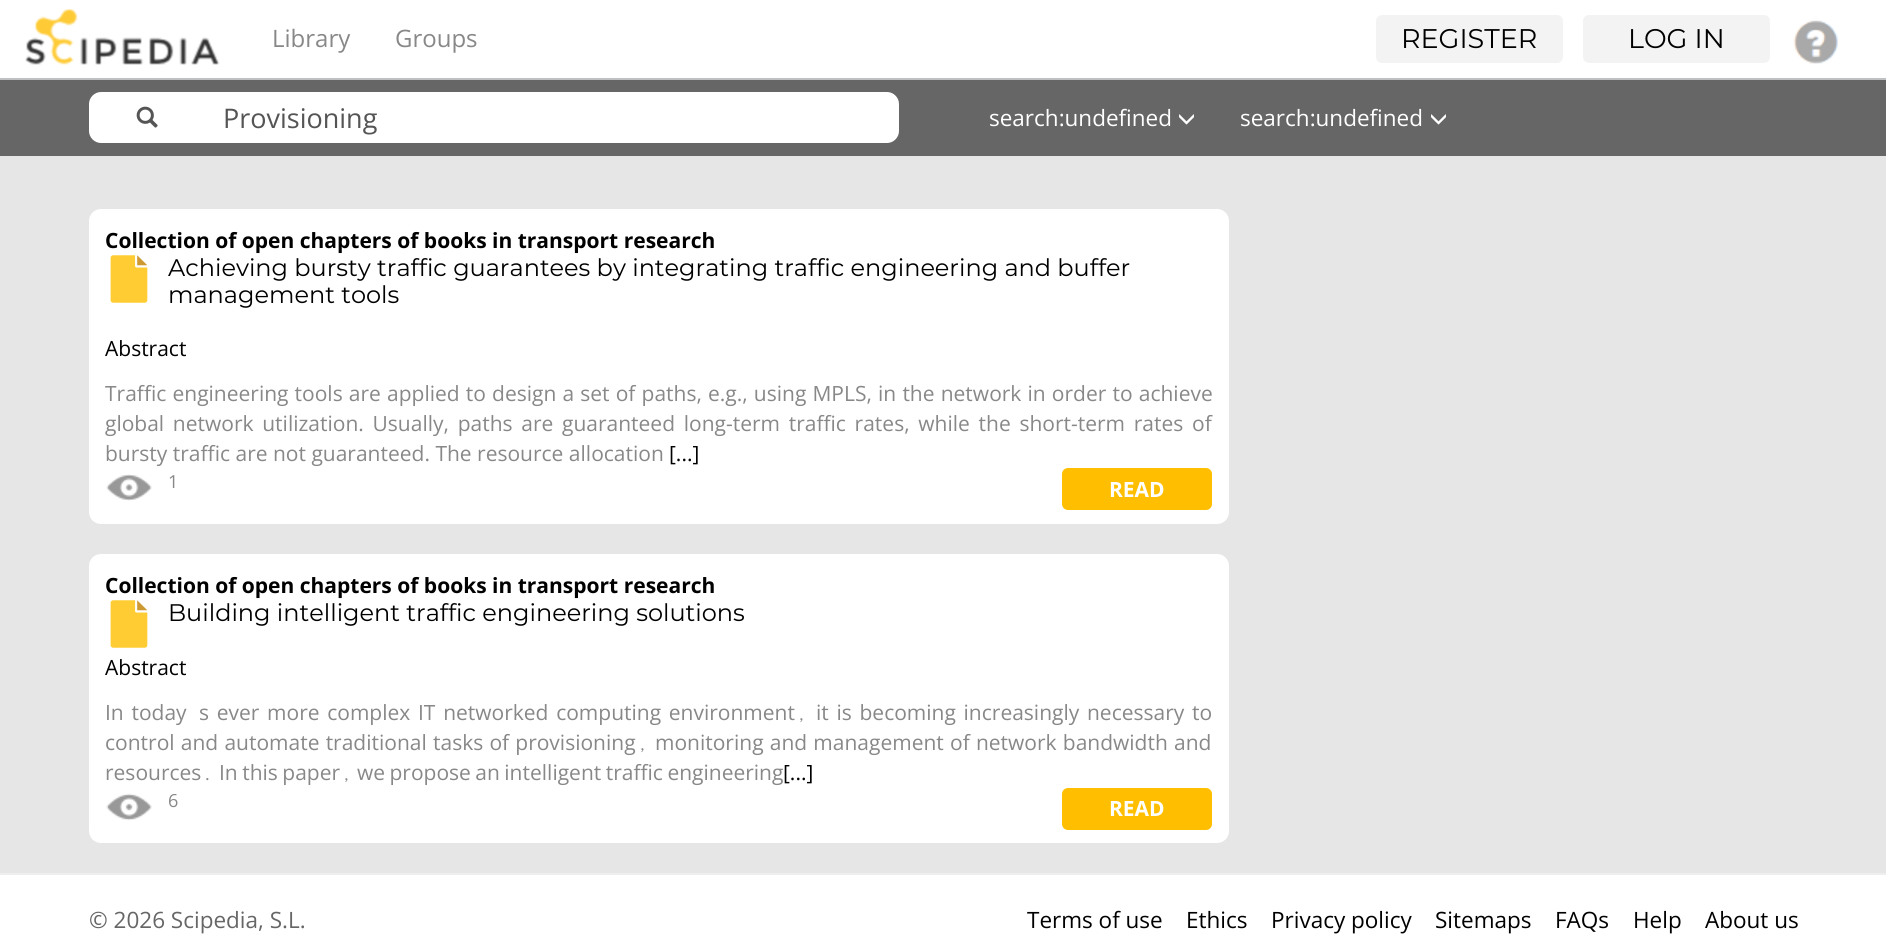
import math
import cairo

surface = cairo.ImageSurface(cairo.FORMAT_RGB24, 1886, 950)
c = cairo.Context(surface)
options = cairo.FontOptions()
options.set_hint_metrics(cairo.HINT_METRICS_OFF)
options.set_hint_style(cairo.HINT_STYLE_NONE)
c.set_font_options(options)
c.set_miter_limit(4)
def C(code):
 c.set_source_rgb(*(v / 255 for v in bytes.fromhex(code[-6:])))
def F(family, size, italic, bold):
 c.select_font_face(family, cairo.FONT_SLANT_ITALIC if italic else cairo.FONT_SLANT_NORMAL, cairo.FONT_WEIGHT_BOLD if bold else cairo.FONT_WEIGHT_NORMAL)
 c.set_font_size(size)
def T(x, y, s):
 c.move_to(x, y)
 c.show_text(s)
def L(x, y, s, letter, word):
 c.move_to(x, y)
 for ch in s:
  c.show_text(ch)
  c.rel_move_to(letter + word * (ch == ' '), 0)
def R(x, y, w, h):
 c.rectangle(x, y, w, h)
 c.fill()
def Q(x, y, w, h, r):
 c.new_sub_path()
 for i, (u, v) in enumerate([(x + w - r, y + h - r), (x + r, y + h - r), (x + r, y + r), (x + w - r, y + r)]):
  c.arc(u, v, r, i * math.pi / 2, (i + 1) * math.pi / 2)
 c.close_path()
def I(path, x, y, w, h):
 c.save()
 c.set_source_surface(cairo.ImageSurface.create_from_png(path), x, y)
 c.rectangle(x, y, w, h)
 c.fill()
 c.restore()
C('ffffff')
c.paint()
C('bec0c1')
R(0,78,1886,2)
I('1.png',25,8,195,57)
F('Open Sans',24,0,0)
C('888888')
T(272,47,'Library')
T(395,47,'Groups')
C('f3f3f3')
Q(1376,15,187,48,6)
c.fill()
F('Montserrat',27,0,0)
C('000000')
T(1401,48,'REGISTER')
C('f3f3f3')
Q(1583,15,187,48,6)
c.fill()
C('000000')
T(1628,48,'LOG IN')
I('2.png',1793,20,45,44)
C('666666')
R(0,80,1886,76)
C('ffffff')
c.new_path()
c.move_to(101,92)
c.line_to(206,92)
c.line_to(206,143)
c.line_to(101,143)
c.curve_to(94.5,143,89,137.5,89,131)
c.line_to(89,104)
c.curve_to(89,97.5,94.5,92,101,92)
c.close_path()
c.fill()
I('3.png',136,106,22,22)
c.new_path()
c.move_to(206,92)
c.line_to(887,92)
c.curve_to(893.5,92,899,97.5,899,104)
c.line_to(899,131)
c.curve_to(899,137.5,893.5,143,887,143)
c.line_to(206,143)
c.close_path()
c.fill()
F('Open Sans',27,0,0)
C('555555')
T(223,128,'Provisioning')
F('Open Sans',22.5,0,0)
C('ffffff')
T(989,126,'search:undefined')
I('4.png',1179,114,15,11)
T(1240,126,'search:undefined')
I('4.png',1431,114,15,11)
C('e6e6e6')
R(0,156,1886,717)
C('ffffff')
Q(89,209,1140,315,12)
c.fill()
F('Open Sans',21,0,1)
C('000000')
T(105,248,'Collection of open chapters of books in transport research')
I('5.png',110,255,38,48)
F('Montserrat',24,0,0)
T(168,276,'Achieving bursty traffic guarantees by integrating traffic engineering and buffer')
T(168,303,'management tools')
F('Open Sans',21,0,0)
T(105,356,'Abstract')
C('888888')
L(105,401,'Traffic engineering tools are applied to design a set of paths, e.g., using MPLS, in the network in order to achieve',0,.7)
L(105,431,'global network utilization. Usually, paths are guaranteed long-term traffic rates, while the short-term rates of',0,3.25)
T(105,461,'bursty traffic are not guaranteed. The resource allocation')
C('000000')
T(669,461,'[...]')
I('6.png',106,474,46,27)
F('Open Sans',18,0,0)
C('888888')
T(168,488,'1')
C('ffbf00')
Q(1062,468,150,42,6)
c.fill()
F('Open Sans',21,0,1)
C('ffffff')
T(1109,497,'READ')
Q(89,554,1140,289,12)
c.fill()
C('000000')
T(105,593,'Collection of open chapters of books in transport research')
I('5.png',110,600,38,48)
F('Montserrat',24,0,0)
T(168,621,'Building intelligent traffic engineering solutions')
F('Open Sans',21,0,0)
T(105,675,'Abstract')
C('888888')
L(105,720,'In today',0,2.25)
L(199,720,'s ever more complex IT networked computing environment',0,2.25)
F('Cutive Mono',21,0,0)
T(795,720,',')
F('Open Sans',21,0,0)
L(816,720,'it is becoming increasingly necessary to',0,2.25)
L(105,750,'control and automate traditional tasks of provisioning',0,.75)
F('Cutive Mono',21,0,0)
T(636,750,',')
F('Open Sans',21,0,0)
L(655,750,'monitoring and management of network bandwidth and',0,.75)
T(105,780,'resources')
F('Cutive Mono',21,0,0)
T(201,780,'.')
F('Open Sans',21,0,0)
L(219,780,'In this paper',0,-1)
F('Cutive Mono',21,0,0)
T(340,780,',')
F('Open Sans',21,0,0)
L(357,780,'we propose an intelligent traffic engineering',0,-1)
C('000000')
T(783,780,'[...]')
I('7.png',106,793,46,28)
F('Open Sans',18,0,0)
C('888888')
T(168,807,'6')
C('ffbf00')
Q(1062,788,150,42,6)
c.fill()
F('Open Sans',21,0,1)
C('ffffff')
T(1109,816,'READ')
C('eeeeee')
R(0,873,1886,2)
F('Open Sans',22.5,0,0)
C('666666')
T(89,928,'© 2026 Scipedia, S.L.')
C('000000')
T(1027,928,'Terms of use')
T(1186,928,'Ethics')
T(1271,928,'Privacy policy')
T(1435,928,'Sitemaps')
T(1555,928,'FAQs')
T(1633,928,'Help')
T(1705,928,'About us')
surface.write_to_png('o.png')
